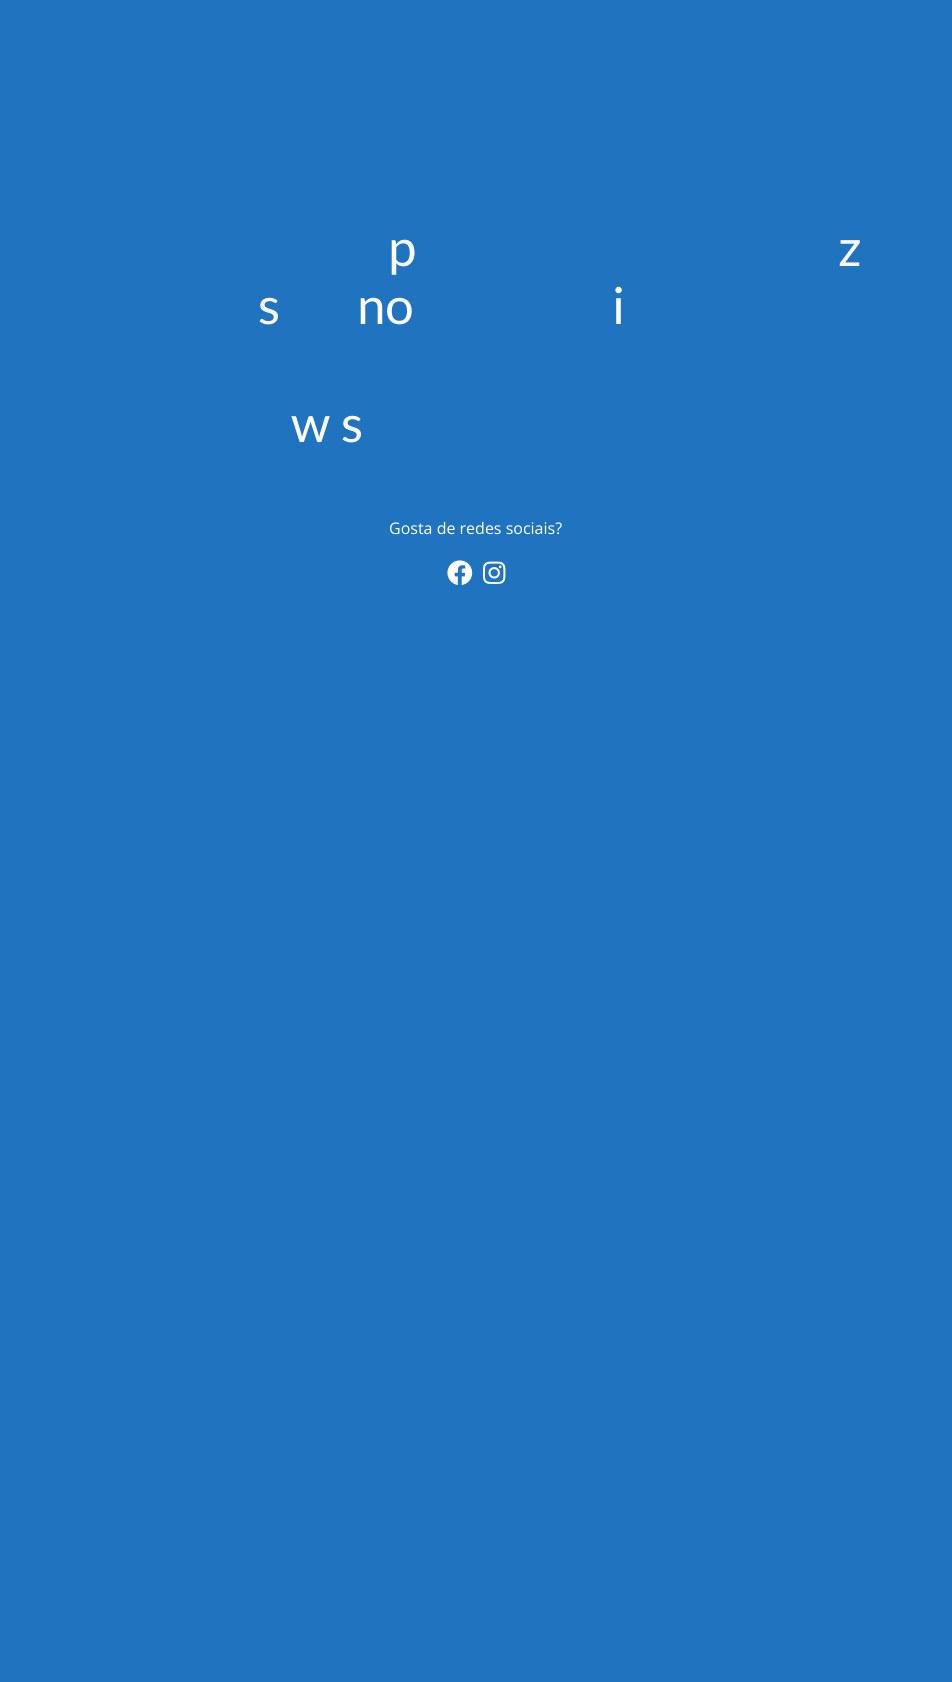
import math
import cairo

surface = cairo.ImageSurface(cairo.FORMAT_RGB24, 952, 1682)
c = cairo.Context(surface)
options = cairo.FontOptions()
options.set_hint_metrics(cairo.HINT_METRICS_OFF)
options.set_hint_style(cairo.HINT_STYLE_NONE)
c.set_font_options(options)
c.set_miter_limit(4)
def C(code):
 c.set_source_rgb(*(v / 255 for v in bytes.fromhex(code[-6:])))
def F(family, size, italic, bold):
 c.select_font_face(family, cairo.FONT_SLANT_ITALIC if italic else cairo.FONT_SLANT_NORMAL, cairo.FONT_WEIGHT_BOLD if bold else cairo.FONT_WEIGHT_NORMAL)
 c.set_font_size(size)
def T(x, y, s):
 c.move_to(x, y)
 c.show_text(s)
def I(path, x, y, w, h):
 c.save()
 c.set_source_surface(cairo.ImageSurface.create_from_png(path), x, y)
 c.rectangle(x, y, w, h)
 c.fill()
 c.restore()
C('2074bf')
c.paint()
F('Lato',51,0,0)
C('ffffff')
T(388,266,'p')
T(838,266,'z')
T(258,324,'s')
T(357,324,'no')
T(612,324,'i')
T(291,442,'w')
T(341,442,'s')
F('Open Sans',16,0,0)
T(389,534,'Gosta de redes sociais?')
I('1.png',447,560,26,25)
I('2.png',483,561,23,23)
surface.write_to_png('o.png')
